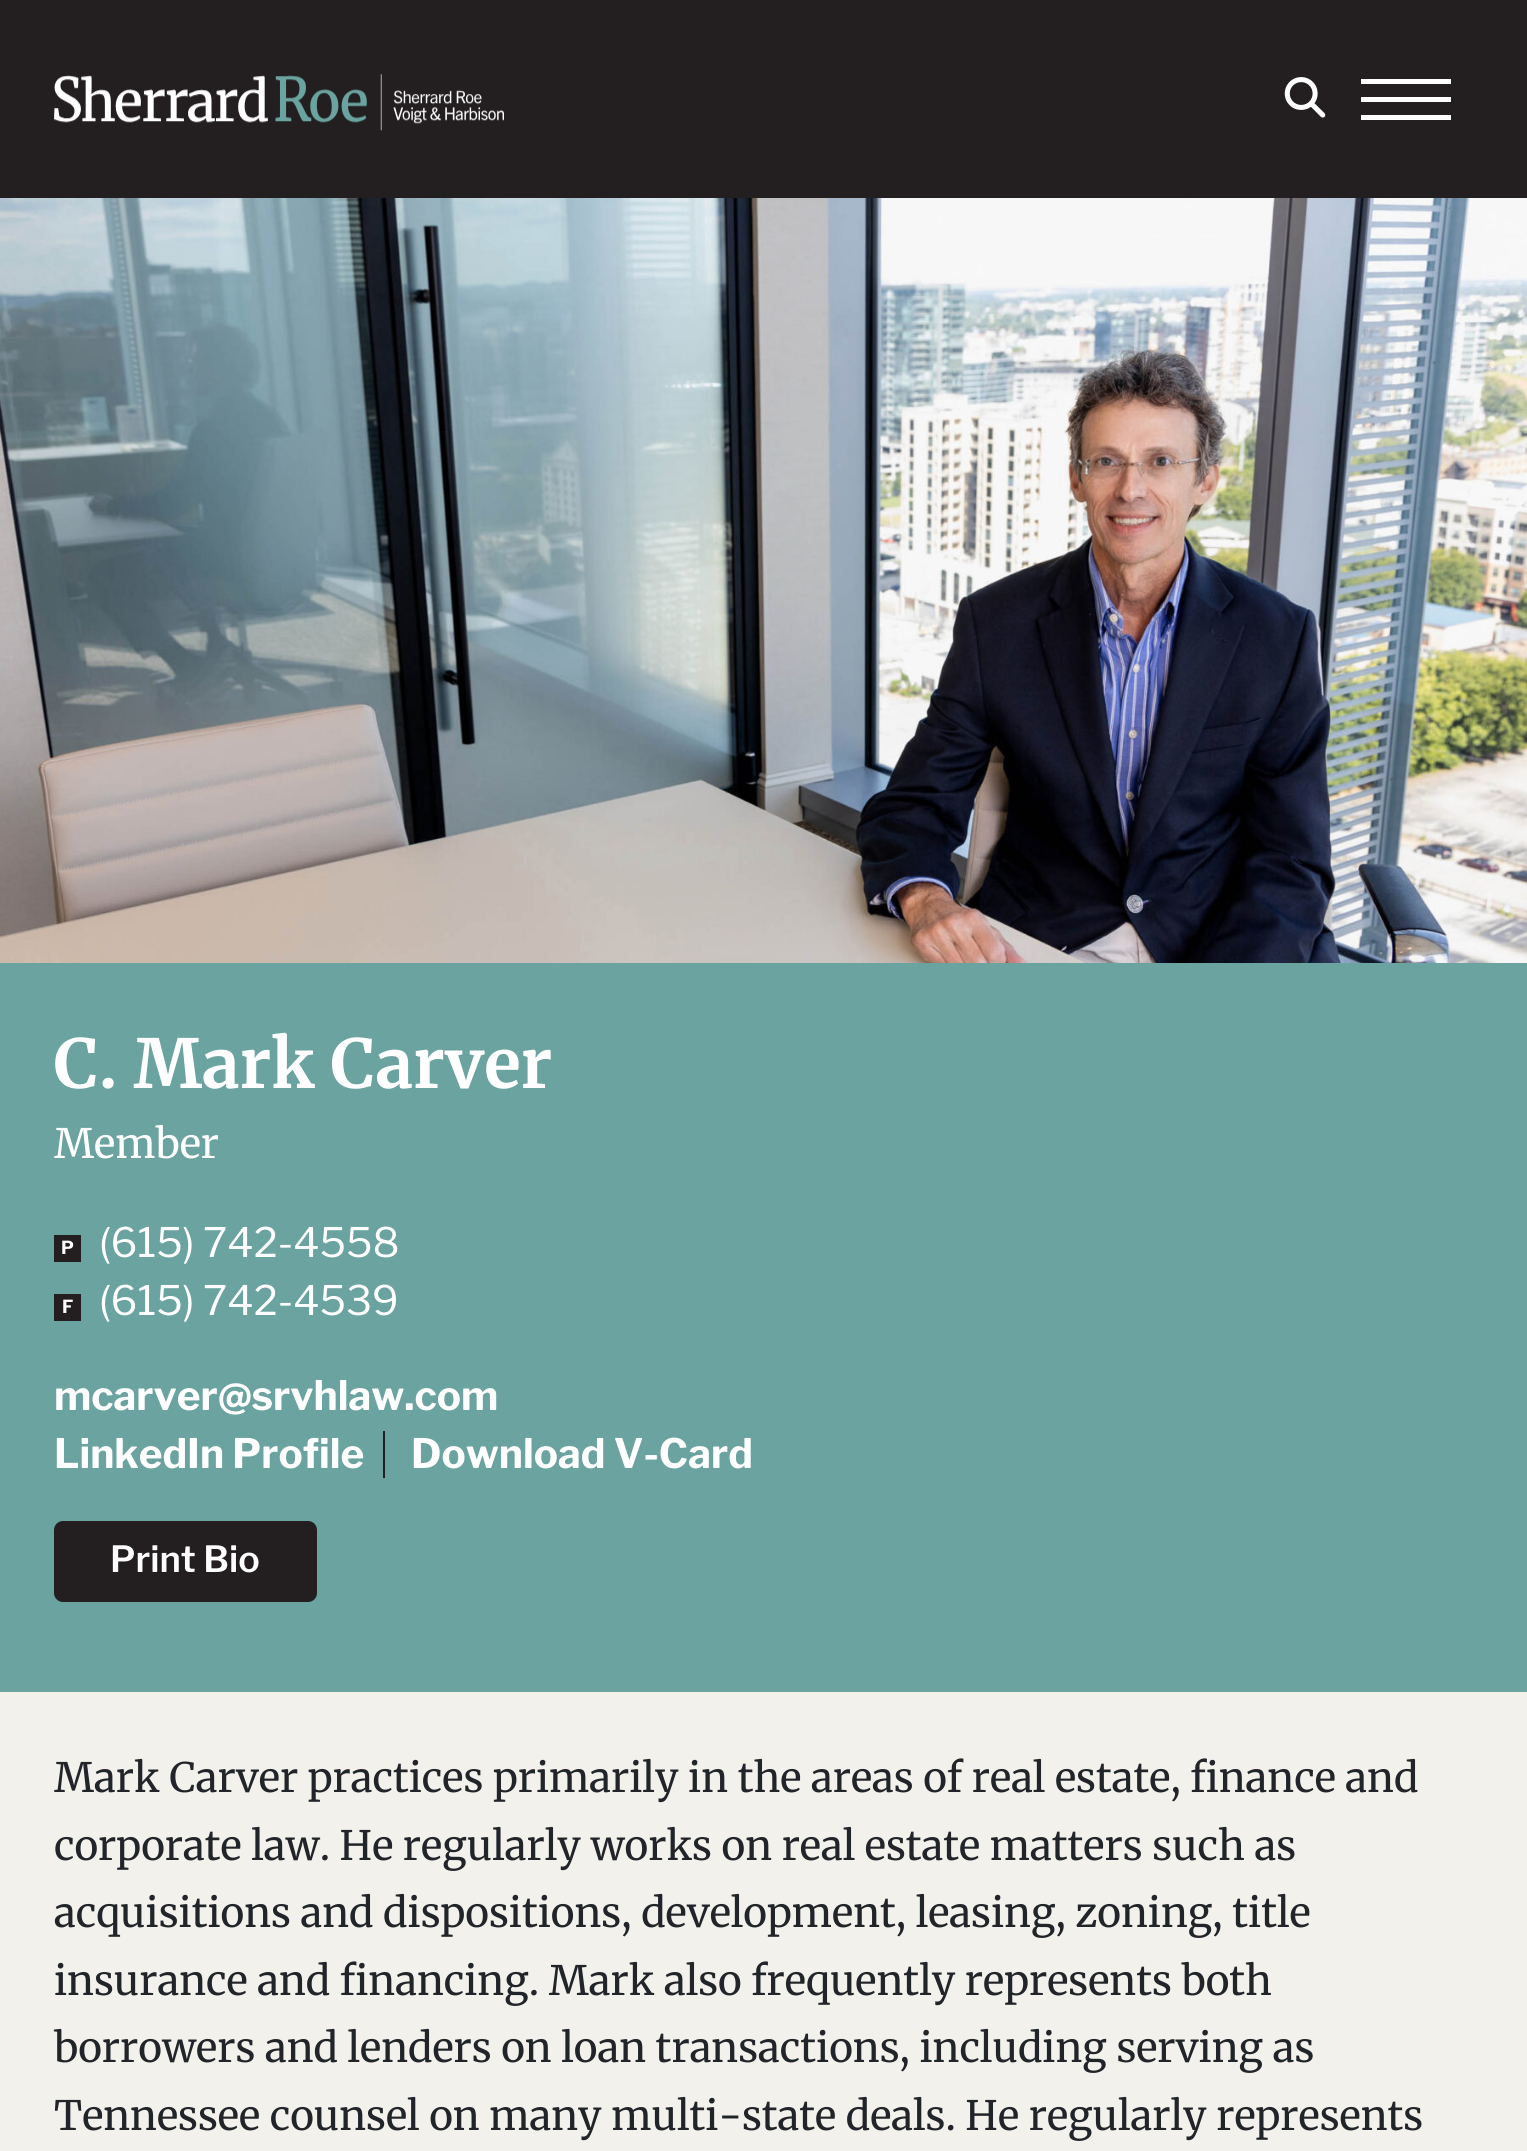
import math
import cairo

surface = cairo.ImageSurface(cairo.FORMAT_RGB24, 1527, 2151)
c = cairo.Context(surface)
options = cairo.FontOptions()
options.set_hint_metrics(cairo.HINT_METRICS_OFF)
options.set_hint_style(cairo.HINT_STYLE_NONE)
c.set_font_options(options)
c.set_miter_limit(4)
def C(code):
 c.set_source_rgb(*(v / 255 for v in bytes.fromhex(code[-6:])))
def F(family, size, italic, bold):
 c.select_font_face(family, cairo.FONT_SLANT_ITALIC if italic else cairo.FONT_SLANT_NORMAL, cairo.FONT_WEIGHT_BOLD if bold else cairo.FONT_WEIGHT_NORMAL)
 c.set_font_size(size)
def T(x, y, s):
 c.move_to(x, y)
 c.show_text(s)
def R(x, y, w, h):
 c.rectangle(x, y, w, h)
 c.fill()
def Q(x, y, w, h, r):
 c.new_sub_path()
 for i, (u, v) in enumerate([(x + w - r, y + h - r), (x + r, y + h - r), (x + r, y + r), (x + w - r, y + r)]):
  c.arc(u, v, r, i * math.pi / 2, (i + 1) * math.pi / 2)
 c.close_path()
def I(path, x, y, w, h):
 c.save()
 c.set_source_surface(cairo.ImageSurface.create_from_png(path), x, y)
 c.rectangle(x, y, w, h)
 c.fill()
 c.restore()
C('f2f1ec')
c.paint()
C('231f20')
R(0,0,1527,198)
I('1.png',54,74,450,57)
I('2.png',1284,77,42,41)
C('ffffff')
R(1361,79,90,5)
R(1361,115,90,5)
R(1361,97,90,5)
I('3.png',0,198,1527,765)
C('6aa39f')
R(0,963,1527,729)
F('Merriweather',67.5,0,1)
C('ffffff')
T(54,1088,'C. Mark Carver')
F('Merriweather',40.5,0,0)
T(54,1158,'Member')
C('231f20')
R(54,1235,27,27)
F('Libre Franklin',18,0,1)
C('ffffff')
T(61,1254,'P')
F('Libre Franklin',40.5,0,0)
T(99,1257,'(615) 742-4558')
C('231f20')
R(54,1294,27,27)
F('Libre Franklin',18,0,1)
C('ffffff')
T(62,1313,'F')
F('Libre Franklin',40.5,0,0)
T(99,1315,'(615) 742-4539')
F('Libre Franklin',40.5,0,1)
T(54,1410,'mcarver@srvhlaw.com')
T(54,1468,'LinkedIn Profile')
C('231f20')
R(383,1431,2,47)
C('ffffff')
T(411,1468,'Download V-Card')
C('231f20')
Q(54,1521,263,81,9)
c.fill()
F('Libre Franklin SemiBold',36,0,0)
C('ffffff')
T(110,1572,'Print Bio')
F('Merriweather',40.5,0,0)
C('212529')
T(54,1792,'Mark Carver practices primarily in the areas of real estate, finance and')
T(54,1860,'corporate law. He regularly works on real estate matters such as')
T(54,1927,'acquisitions and dispositions, development, leasing, zoning, title')
T(54,1995,'insurance and financing. Mark also frequently represents both')
T(54,2062,'borrowers and lenders on loan transactions, including serving as')
T(54,2130,'Tennessee counsel on many multi-state deals. He regularly represents')
surface.write_to_png('o.png')
